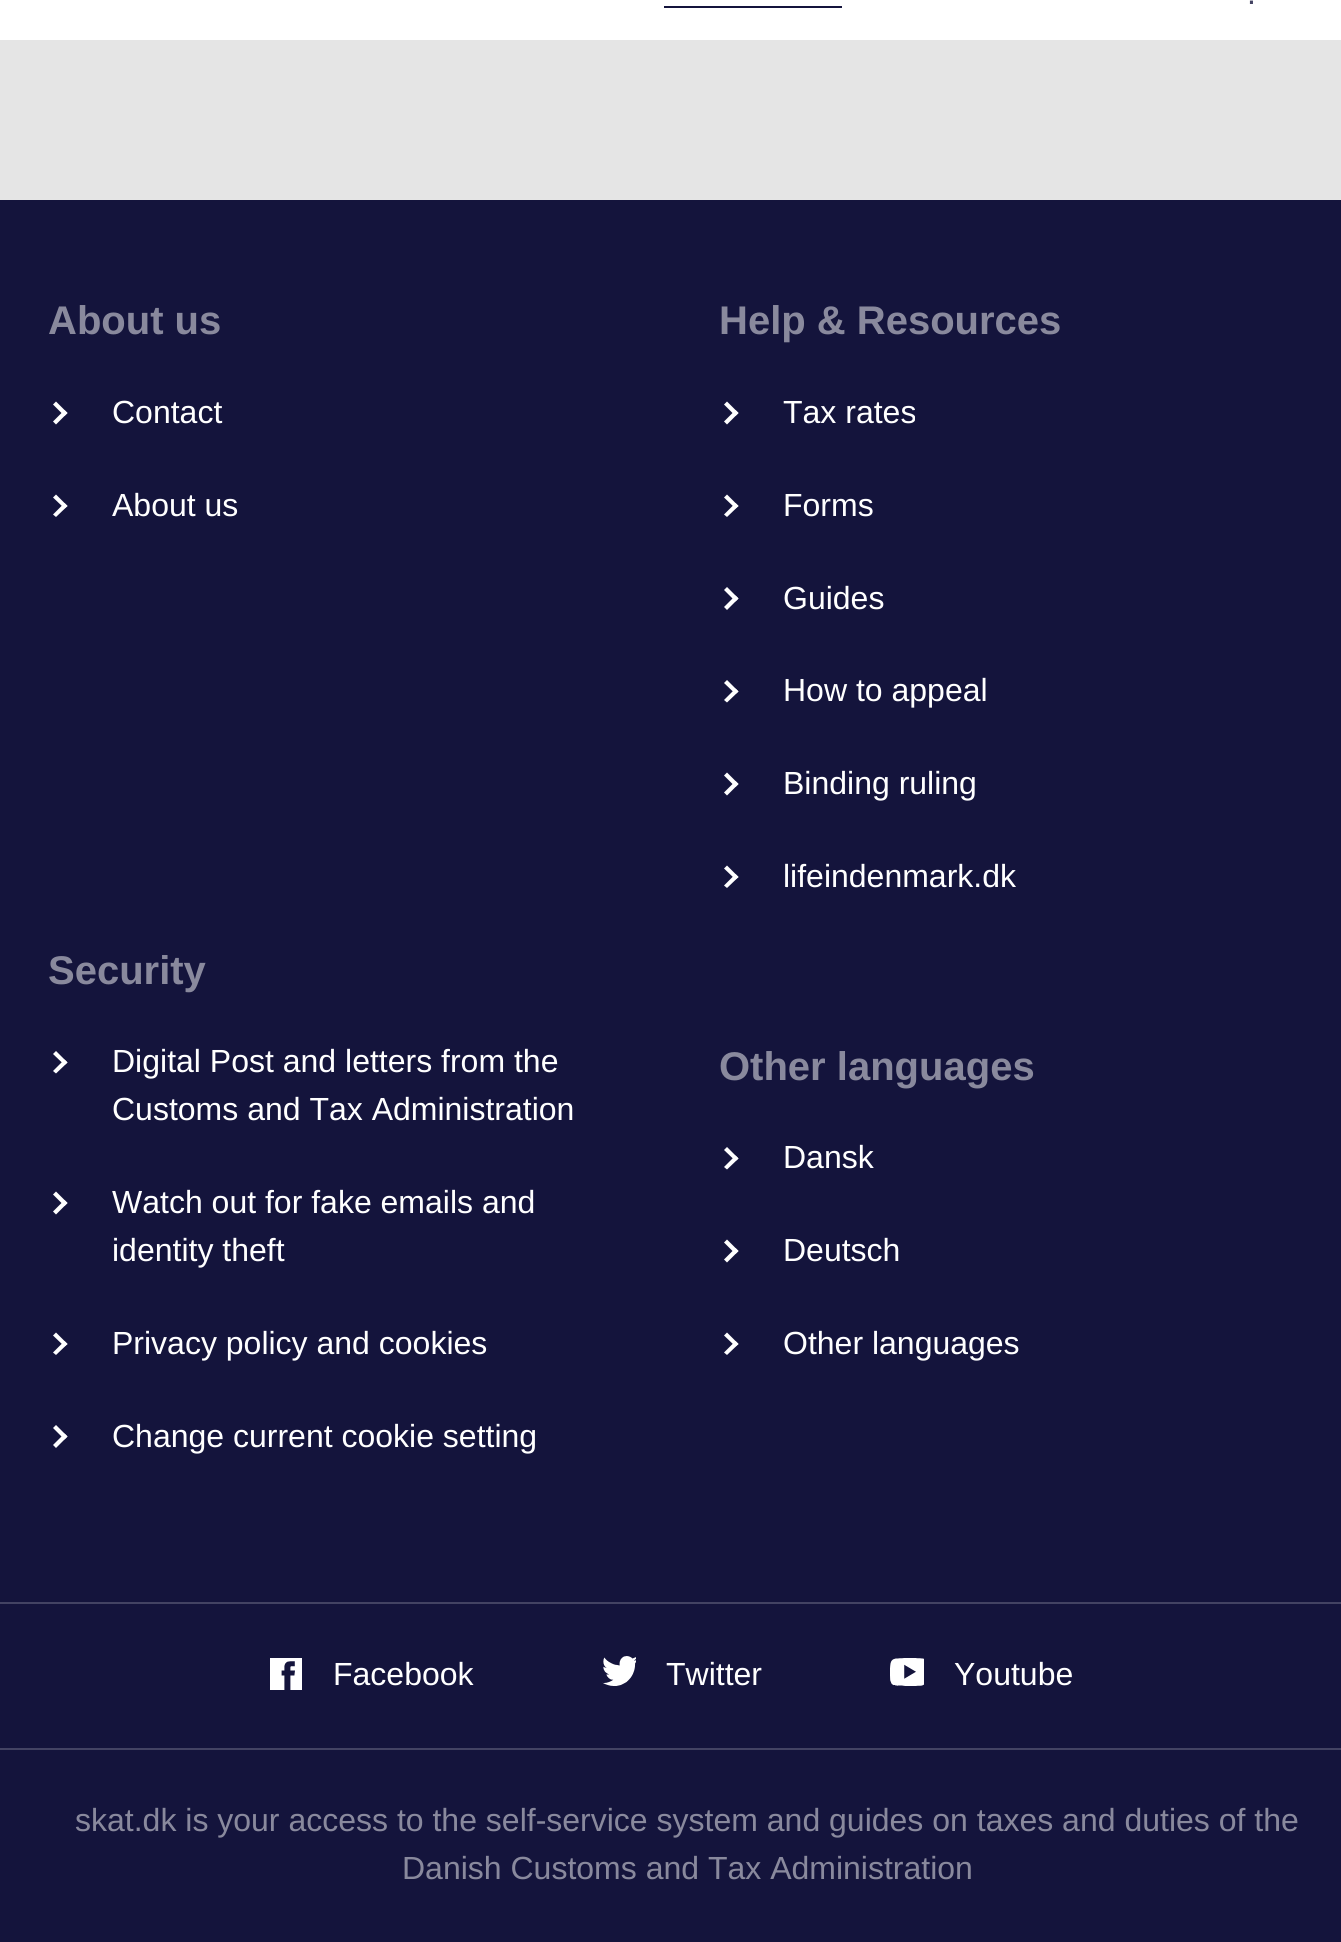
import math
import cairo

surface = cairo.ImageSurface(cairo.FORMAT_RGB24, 1341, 1942)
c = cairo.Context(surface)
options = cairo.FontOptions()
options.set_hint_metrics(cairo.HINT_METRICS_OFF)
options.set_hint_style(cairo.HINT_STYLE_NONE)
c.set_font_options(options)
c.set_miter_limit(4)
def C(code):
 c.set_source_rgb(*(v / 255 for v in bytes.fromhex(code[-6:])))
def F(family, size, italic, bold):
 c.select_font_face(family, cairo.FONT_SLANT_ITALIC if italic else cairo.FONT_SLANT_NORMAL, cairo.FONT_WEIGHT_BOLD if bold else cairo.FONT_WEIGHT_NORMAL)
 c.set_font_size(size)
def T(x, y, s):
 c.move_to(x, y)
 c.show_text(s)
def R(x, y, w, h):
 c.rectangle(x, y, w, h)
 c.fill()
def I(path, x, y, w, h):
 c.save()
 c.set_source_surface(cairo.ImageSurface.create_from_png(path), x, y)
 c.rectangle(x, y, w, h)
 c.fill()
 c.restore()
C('e5e5e5')
c.paint()
C('ffffff')
R(0,0,1341,40)
F('Liberation Sans',32,0,0)
C('434363')
T(1247,4,'.')
C('14143c')
R(664,6,178,2)
R(0,200,1341,1742)
F('Liberation Sans',40,0,1)
C('89899d')
T(48,334,'About us')
C('ffffff')
c.new_path()
c.move_to(56,401.5)
c.line_to(67.5,413)
c.line_to(64.5,416)
c.line_to(53,404.5)
c.close_path()
c.fill()
c.new_path()
c.move_to(64.5,410)
c.line_to(67.5,413)
c.line_to(56,424.5)
c.line_to(53,421.5)
c.close_path()
c.fill()
F('Liberation Sans',32,0,0)
T(112,423,'Contact')
c.new_path()
c.move_to(56,494.5)
c.line_to(67.5,506)
c.line_to(64.5,508.5)
c.line_to(53,497.5)
c.close_path()
c.fill()
c.new_path()
c.move_to(64.5,503)
c.line_to(67.5,506)
c.line_to(56,517)
c.line_to(53,514.5)
c.close_path()
c.fill()
T(112,516,'About us')
F('Liberation Sans',40,0,1)
C('89899d')
T(719,334,'Help & Resources')
C('ffffff')
c.new_path()
c.move_to(727,401.5)
c.line_to(738.5,413)
c.line_to(735.5,416)
c.line_to(724,404.5)
c.close_path()
c.fill()
c.new_path()
c.move_to(735.5,410)
c.line_to(738.5,413)
c.line_to(727,424.5)
c.line_to(724,421.5)
c.close_path()
c.fill()
F('Liberation Sans',32,0,0)
T(783,423,'Tax rates')
c.new_path()
c.move_to(727,494.5)
c.line_to(738.5,506)
c.line_to(735.5,508.5)
c.line_to(724,497.5)
c.close_path()
c.fill()
c.new_path()
c.move_to(735.5,503)
c.line_to(738.5,506)
c.line_to(727,517)
c.line_to(724,514.5)
c.close_path()
c.fill()
T(783,516,'Forms')
c.new_path()
c.move_to(727,587)
c.line_to(738.5,598.5)
c.line_to(735.5,601.5)
c.line_to(724,590)
c.close_path()
c.fill()
c.new_path()
c.move_to(735.5,595.5)
c.line_to(738.5,598.5)
c.line_to(727,610)
c.line_to(724,607)
c.close_path()
c.fill()
T(783,609,'Guides')
c.new_path()
c.move_to(727,680)
c.line_to(738.5,691.5)
c.line_to(735.5,694)
c.line_to(724,683)
c.close_path()
c.fill()
c.new_path()
c.move_to(735.5,688.5)
c.line_to(738.5,691.5)
c.line_to(727,702.5)
c.line_to(724,700)
c.close_path()
c.fill()
T(783,701,'How to appeal')
c.new_path()
c.move_to(727,772.5)
c.line_to(738.5,784)
c.line_to(735.5,787)
c.line_to(724,775.5)
c.close_path()
c.fill()
c.new_path()
c.move_to(735.5,781)
c.line_to(738.5,784)
c.line_to(727,795.5)
c.line_to(724,792.5)
c.close_path()
c.fill()
T(783,794,'Binding ruling')
c.new_path()
c.move_to(727,865.5)
c.line_to(738.5,877)
c.line_to(735.5,879.5)
c.line_to(724,868.5)
c.close_path()
c.fill()
c.new_path()
c.move_to(735.5,874)
c.line_to(738.5,877)
c.line_to(727,888)
c.line_to(724,885.5)
c.close_path()
c.fill()
T(783,887,'lifeindenmark.dk')
F('Liberation Sans',40,0,1)
C('89899d')
T(48,984,'Security')
C('ffffff')
c.new_path()
c.move_to(56,1051)
c.line_to(67.5,1062.5)
c.line_to(64.5,1065)
c.line_to(53,1054)
c.close_path()
c.fill()
c.new_path()
c.move_to(64.5,1059.5)
c.line_to(67.5,1062.5)
c.line_to(56,1073.5)
c.line_to(53,1071)
c.close_path()
c.fill()
F('Liberation Sans',32,0,0)
T(112,1072,'Digital Post and letters from the')
T(112,1120,'Customs and Tax Administration')
c.new_path()
c.move_to(56,1191.5)
c.line_to(67.5,1203)
c.line_to(64.5,1206)
c.line_to(53,1194.5)
c.close_path()
c.fill()
c.new_path()
c.move_to(64.5,1200)
c.line_to(67.5,1203)
c.line_to(56,1214.5)
c.line_to(53,1211.5)
c.close_path()
c.fill()
T(112,1213,'Watch out for fake emails and')
T(112,1261,'identity theft')
c.new_path()
c.move_to(56,1332.5)
c.line_to(67.5,1344)
c.line_to(64.5,1346.5)
c.line_to(53,1335.5)
c.close_path()
c.fill()
c.new_path()
c.move_to(64.5,1341)
c.line_to(67.5,1344)
c.line_to(56,1355)
c.line_to(53,1352.5)
c.close_path()
c.fill()
T(112,1354,'Privacy policy and cookies')
c.new_path()
c.move_to(56,1425)
c.line_to(67.5,1436.5)
c.line_to(64.5,1439.5)
c.line_to(53,1428)
c.close_path()
c.fill()
c.new_path()
c.move_to(64.5,1433.5)
c.line_to(67.5,1436.5)
c.line_to(56,1448)
c.line_to(53,1445)
c.close_path()
c.fill()
T(112,1447,'Change current cookie setting')
F('Liberation Sans',40,0,1)
C('89899d')
T(719,1080,'Other languages')
C('ffffff')
c.new_path()
c.move_to(727,1147)
c.line_to(738.5,1158.5)
c.line_to(735.5,1161)
c.line_to(724,1150)
c.close_path()
c.fill()
c.new_path()
c.move_to(735.5,1155.5)
c.line_to(738.5,1158.5)
c.line_to(727,1169.5)
c.line_to(724,1167)
c.close_path()
c.fill()
F('Liberation Sans',32,0,0)
T(783,1168,'Dansk')
c.new_path()
c.move_to(727,1239.5)
c.line_to(738.5,1251)
c.line_to(735.5,1254)
c.line_to(724,1242.5)
c.close_path()
c.fill()
c.new_path()
c.move_to(735.5,1248)
c.line_to(738.5,1251)
c.line_to(727,1262.5)
c.line_to(724,1259.5)
c.close_path()
c.fill()
T(783,1261,'Deutsch')
c.new_path()
c.move_to(727,1332.5)
c.line_to(738.5,1344)
c.line_to(735.5,1346.5)
c.line_to(724,1335.5)
c.close_path()
c.fill()
c.new_path()
c.move_to(735.5,1341)
c.line_to(738.5,1344)
c.line_to(727,1355)
c.line_to(724,1352.5)
c.close_path()
c.fill()
T(783,1354,'Other languages')
C('434363')
R(0,1602,1341,2)
I('1.png',270,1658,32,32)
C('ffffff')
T(333,1685,'Facebook')
I('2.png',602,1656,34,30)
T(666,1685,'Twitter')
I('3.png',890,1658,34,28)
T(954,1685,'Youtube')
C('434363')
R(0,1748,1341,2)
C('89899d')
T(75,1831,'skat.dk is your access to the self-service system and guides on taxes and duties of the')
T(402,1879,'Danish Customs and Tax Administration')
surface.write_to_png('o.png')
